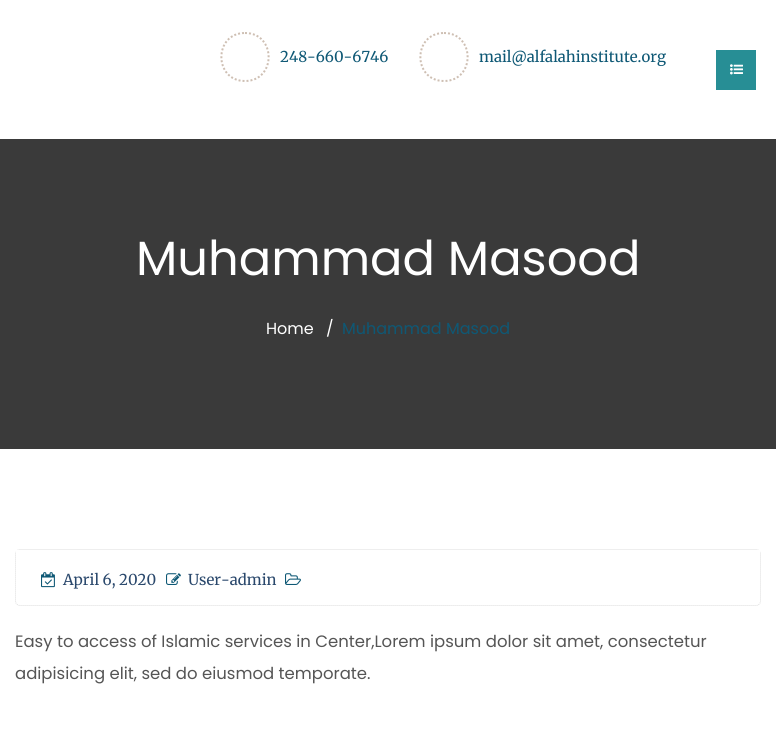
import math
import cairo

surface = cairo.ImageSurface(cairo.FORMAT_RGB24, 776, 739)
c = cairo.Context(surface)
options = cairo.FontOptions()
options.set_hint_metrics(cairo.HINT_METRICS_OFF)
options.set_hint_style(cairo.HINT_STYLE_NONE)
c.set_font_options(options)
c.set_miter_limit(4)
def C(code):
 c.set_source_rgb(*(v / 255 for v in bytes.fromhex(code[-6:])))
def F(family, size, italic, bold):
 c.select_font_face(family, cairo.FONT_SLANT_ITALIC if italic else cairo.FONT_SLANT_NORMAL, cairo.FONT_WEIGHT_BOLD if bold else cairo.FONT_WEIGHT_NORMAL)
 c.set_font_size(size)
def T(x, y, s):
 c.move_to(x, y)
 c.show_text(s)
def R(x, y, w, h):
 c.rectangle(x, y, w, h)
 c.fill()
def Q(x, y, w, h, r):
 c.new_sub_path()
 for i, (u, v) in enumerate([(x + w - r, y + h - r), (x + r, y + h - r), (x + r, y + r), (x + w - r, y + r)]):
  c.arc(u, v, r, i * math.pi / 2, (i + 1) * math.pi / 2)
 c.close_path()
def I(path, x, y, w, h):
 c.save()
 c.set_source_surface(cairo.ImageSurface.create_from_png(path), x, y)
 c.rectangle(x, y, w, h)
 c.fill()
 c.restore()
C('ffffff')
c.paint()
c.new_path()
c.move_to(245,33)
c.curve_to(276.5,33,276.5,81,245,81)
c.curve_to(213.5,81,213.5,33,245,33)
c.close_path()
C('cebfb3')
c.set_dash([2,2])
c.stroke()
F('Merriweather',15,0,0)
C('0e5875')
T(280,62,'248-660-6746')
c.new_path()
c.move_to(444,33)
c.curve_to(475.5,33,475.5,81,444,81)
c.curve_to(412.5,81,412.5,33,444,33)
c.close_path()
C('cebfb3')
c.stroke()
C('0e5875')
T(479,62,'mail@alfalahinstitute.org')
C('278e95')
R(716,50,40,40)
I('1.png',730,64,13,11)
C('3a3a3a')
R(0,139,776,310)
F('Poppins',48,0,0)
C('ffffff')
T(136,275,'Muhammad Masood')
F('Poppins',16,0,0)
T(266,334,'Home')
T(326,334,'/')
C('0e5875')
T(342,334,'Muhammad Masood')
c.save()
Q(15,549,746,57,5)
c.clip()
c.new_path()
c.move_to(15.5,549.5)
c.line_to(760.5,549.5)
c.line_to(760.5,601)
c.curve_to(760.5,603.5,758.5,605.5,756,605.5)
c.line_to(20,605.5)
c.curve_to(17.5,605.5,15.5,603.5,15.5,601)
c.close_path()
C('dddddd')
c.set_line_width(1)
c.set_dash([1,1])
c.stroke()
c.restore()
I('2.png',41,572,14,16)
F('Merriweather',15,0,0)
C('2a486c')
T(63,585,'April 6, 2020')
I('3.png',166,573,15,12)
T(188,585,'User-admin')
I('4.png',285,573,16,12)
F('Poppins',16.5,0,0)
C('555555')
T(15,647,'Easy to access of Islamic services in Center,Lorem ipsum dolor sit amet, consectetur')
T(15,679,'adipisicing elit, sed do eiusmod temporate.')
surface.write_to_png('o.png')
